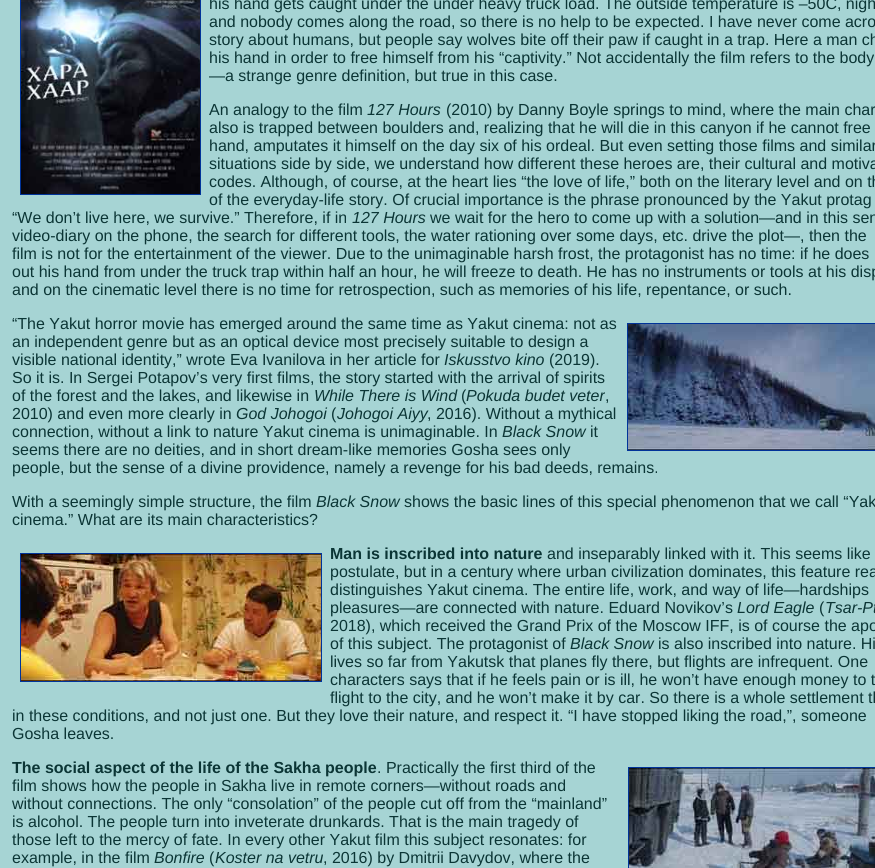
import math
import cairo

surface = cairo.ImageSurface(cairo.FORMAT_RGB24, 875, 868)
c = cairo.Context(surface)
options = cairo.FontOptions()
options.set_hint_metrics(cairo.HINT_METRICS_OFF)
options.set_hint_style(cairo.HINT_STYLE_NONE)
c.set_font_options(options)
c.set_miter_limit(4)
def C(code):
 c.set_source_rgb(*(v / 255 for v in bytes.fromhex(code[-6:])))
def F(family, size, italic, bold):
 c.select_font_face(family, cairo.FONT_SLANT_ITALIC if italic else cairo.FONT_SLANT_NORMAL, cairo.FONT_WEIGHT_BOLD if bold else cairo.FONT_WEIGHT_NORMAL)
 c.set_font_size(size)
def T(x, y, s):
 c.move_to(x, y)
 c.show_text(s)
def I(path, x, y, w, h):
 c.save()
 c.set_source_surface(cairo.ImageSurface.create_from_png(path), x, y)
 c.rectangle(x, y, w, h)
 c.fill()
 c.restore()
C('a6d4d4')
c.paint()
c.rectangle(20.5,-.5,180,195)
C('003399')
c.set_line_width(1)
c.stroke()
I('1.png',21,0,179,194)
F('Liberation Sans',16,0,0)
C('0b3535')
T(209,9,'his hand gets caught under the under heavy truck load. The outside temperature is –50C, nigh')
T(209,27,'and nobody comes along the road, so there is no help to be expected. I have never come acro')
T(209,45,'story about humans, but people say wolves bite off their paw if caught in a trap. Here a man ch')
T(209,63,'his hand in order to free himself from his “captivity.” Not accidentally the film refers to the body')
T(209,81,'—a strange genre definition, but true in this case.')
T(209,115,'An analogy to the film')
F('Liberation Sans',16,1,0)
T(367,115,'127 Hours')
F('Liberation Sans',16,0,0)
T(446,115,'(2010) by Danny Boyle springs to mind, where the main char')
T(209,133,'also is trapped between boulders and, realizing that he will die in this canyon if he cannot free')
T(209,151,'hand, amputates it himself on the day six of his ordeal. But even setting those films and similar')
T(209,169,'situations side by side, we understand how different these heroes are, their cultural and motiva')
T(209,187,'codes. Although, of course, at the heart lies “the love of life,” both on the literary level and on th')
T(209,205,'of the everyday-life story. Of crucial importance is the phrase pronounced by the Yakut protag')
T(12,223,'“We don’t live here, we survive.” Therefore, if in')
F('Liberation Sans',16,1,0)
T(352,223,'127 Hours')
F('Liberation Sans',16,0,0)
T(430,223,'we wait for the hero to come up with a solution—and in this sen')
T(12,241,'video-diary on the phone, the search for different tools, the water rationing over some days, etc. drive the plot—, then the')
T(12,259,'film is not for the entertainment of the viewer. Due to the unimaginable harsh frost, the protagonist has no time: if he does')
T(12,277,'out his hand from under the truck trap within half an hour, he will freeze to death. He has no instruments or tools at his disp')
T(12,295,'and on the cinematic level there is no time for retrospection, such as memories of his life, repentance, or such.')
T(12,329,'“The Yakut horror movie has emerged around the same time as Yakut cinema: not as')
c.rectangle(627.5,323.5,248,127)
C('003399')
c.stroke()
I('2.png',628,324,247,126)
C('0b3535')
T(12,347,'an independent genre but as an optical device most precisely suitable to design a')
T(12,365,'visible national identity,” wrote Eva Ivanilova in her article for')
F('Liberation Sans',16,1,0)
T(444,365,'Iskusstvo kino')
F('Liberation Sans',16,0,0)
T(549,365,'(2019).')
T(12,383,'So it is. In Sergei Potapov’s very first films, the story started with the arrival of spirits')
T(12,401,'of the forest and the lakes, and likewise in')
F('Liberation Sans',16,1,0)
T(314,401,'While There is Wind')
F('Liberation Sans',16,0,0)
T(461,401,'(')
F('Liberation Sans',16,1,0)
T(466,401,'Pokuda budet veter')
F('Liberation Sans',16,0,0)
T(605,401,',')
T(12,419,'2010) and even more clearly in')
F('Liberation Sans',16,1,0)
T(236,419,'God Johogoi')
F('Liberation Sans',16,0,0)
T(331,419,'(')
F('Liberation Sans',16,1,0)
T(337,419,'Johogoi Aiyy')
F('Liberation Sans',16,0,0)
T(427,419,', 2016). Without a mythical')
T(12,437,'connection, without a link to nature Yakut cinema is unimaginable. In')
F('Liberation Sans',16,1,0)
T(502,437,'Black Snow')
F('Liberation Sans',16,0,0)
T(590,437,'it')
T(12,455,'seems there are no deities, and in short dream-like memories Gosha sees only')
T(12,473,'people, but the sense of a divine providence, namely a revenge for his bad deeds, remains.')
T(12,507,'With a seemingly simple structure, the film')
F('Liberation Sans',16,1,0)
T(316,507,'Black Snow')
F('Liberation Sans',16,0,0)
T(404,507,'shows the basic lines of this special phenomenon that we call “Yak')
T(12,525,'cinema.” What are its main characteristics?')
c.rectangle(20.5,553.5,301,128)
C('003399')
c.stroke()
I('3.png',21,554,300,127)
F('Liberation Sans',16,0,1)
C('0b3535')
T(330,559,'Man is inscribed into nature')
F('Liberation Sans',16,0,0)
T(547,559,'and inseparably linked with it. This seems like')
T(330,577,'postulate, but in a century where urban civilization dominates, this feature rea')
T(330,595,'distinguishes Yakut cinema. The entire life, work, and way of life—hardships')
T(330,613,'pleasures—are connected with nature. Eduard Novikov’s')
F('Liberation Sans',16,1,0)
T(737,613,'Lord Eagle')
F('Liberation Sans',16,0,0)
T(819,613,'(')
F('Liberation Sans',16,1,0)
T(825,613,'Tsar-Pt')
F('Liberation Sans',16,0,0)
T(330,631,'2018), which received the Grand Prix of the Moscow IFF, is of course the apo')
T(330,649,'of this subject. The protagonist of')
F('Liberation Sans',16,1,0)
T(570,649,'Black Snow')
F('Liberation Sans',16,0,0)
T(658,649,'is also inscribed into nature. Hi')
T(330,667,'lives so far from Yakutsk that planes fly there, but flights are infrequent. One')
T(330,685,'characters says that if he feels pain or is ill, he won’t have enough money to t')
T(330,703,'flight to the city, and he won’t make it by car. So there is a whole settlement th')
T(12,721,'in these conditions, and not just one. But they love their nature, and respect it. “I have stopped liking the road,”, someone')
T(12,739,'Gosha leaves.')
F('Liberation Sans',16,0,1)
T(12,773,'The social aspect of the life of the Sakha people')
c.rectangle(628.5,767.5,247,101)
C('003399')
c.stroke()
I('4.png',629,768,246,100)
F('Liberation Sans',16,0,0)
C('0b3535')
T(377,773,'. Practically the first third of the')
T(12,791,'film shows how the people in Sakha live in remote corners—without roads and')
T(12,809,'without connections. The only “consolation” of the people cut off from the “mainland”')
T(12,827,'is alcohol. The people turn into inveterate drunkards. That is the main tragedy of')
T(12,845,'those left to the mercy of fate. In every other Yakut film this subject resonates: for')
T(12,863,'example, in the film')
F('Liberation Sans',16,1,0)
T(154,863,'Bonfire')
F('Liberation Sans',16,0,0)
T(209,863,'(')
F('Liberation Sans',16,1,0)
T(215,863,'Koster na vetru')
F('Liberation Sans',16,0,0)
T(323,863,', 2016) by Dmitrii Davydov, where the')
surface.write_to_png('o.png')
